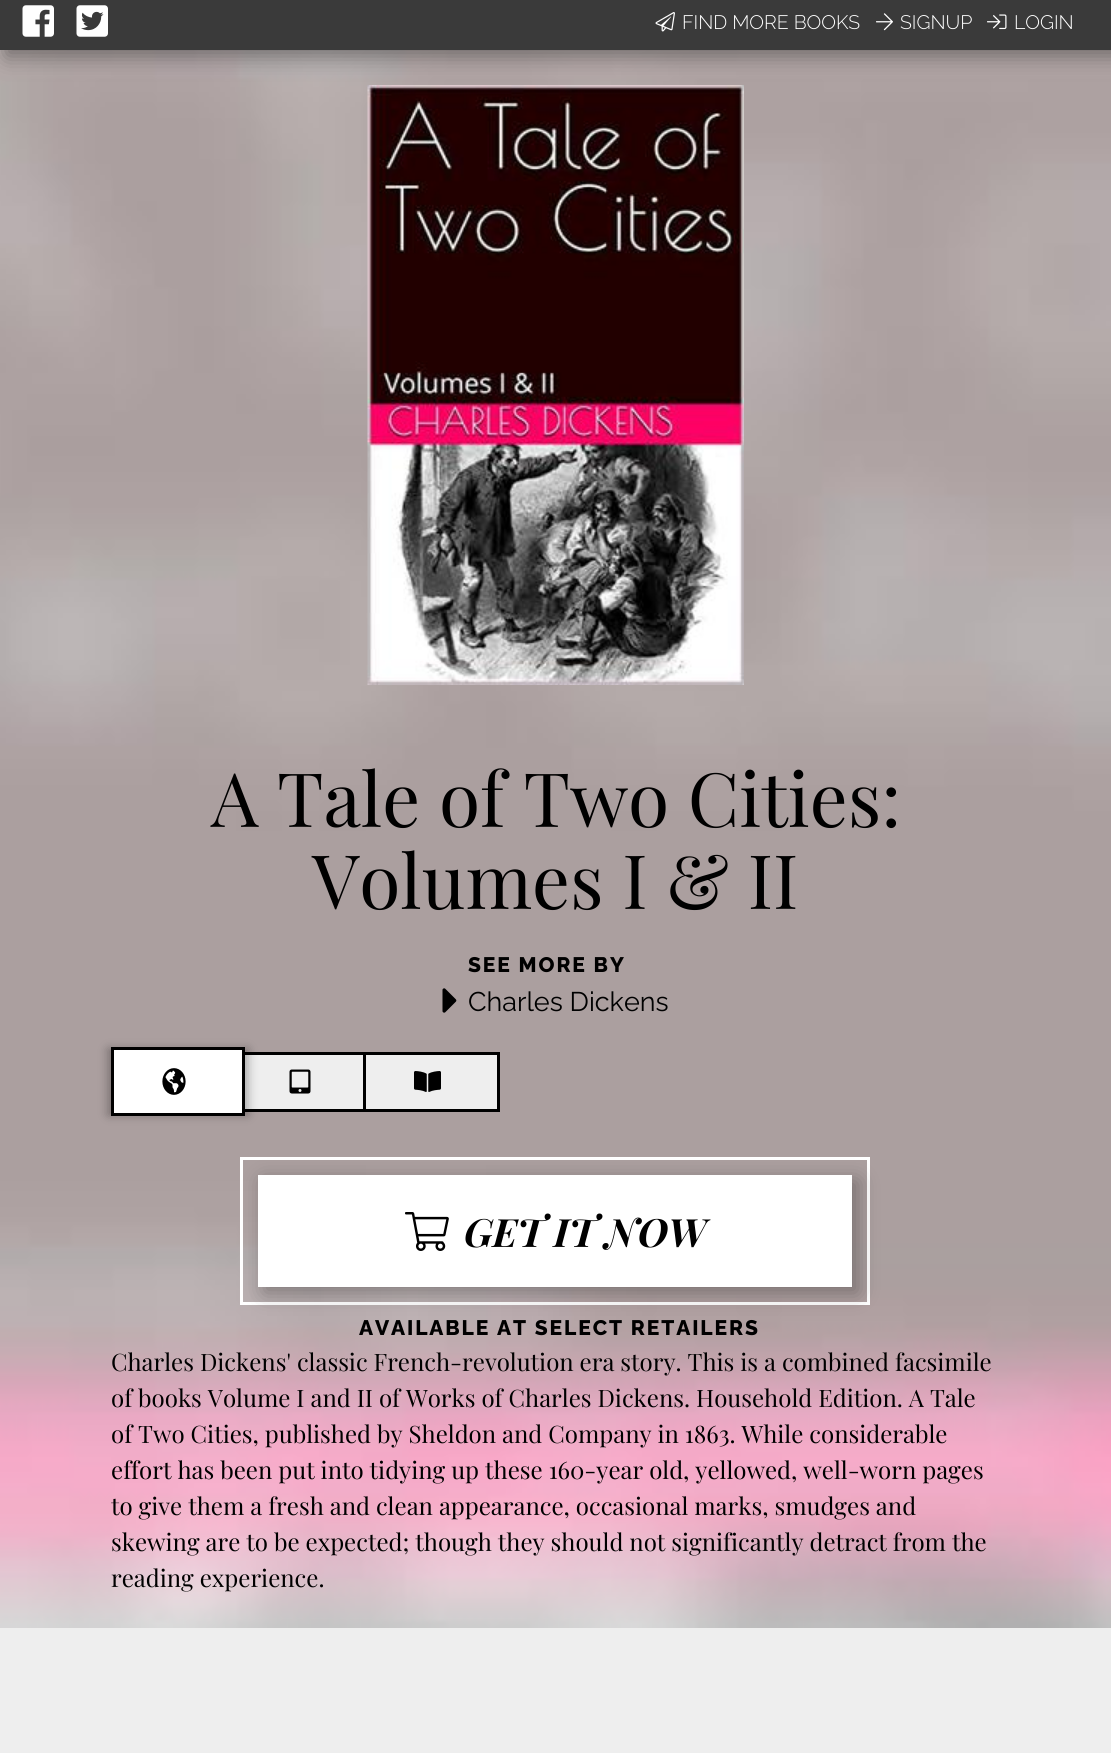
import math
import cairo

surface = cairo.ImageSurface(cairo.FORMAT_RGB24, 1111, 1753)
c = cairo.Context(surface)
options = cairo.FontOptions()
options.set_hint_metrics(cairo.HINT_METRICS_OFF)
options.set_hint_style(cairo.HINT_STYLE_NONE)
c.set_font_options(options)
c.set_miter_limit(4)
def C(code):
 c.set_source_rgb(*(v / 255 for v in bytes.fromhex(code[-6:])))
def F(family, size, italic, bold):
 c.select_font_face(family, cairo.FONT_SLANT_ITALIC if italic else cairo.FONT_SLANT_NORMAL, cairo.FONT_WEIGHT_BOLD if bold else cairo.FONT_WEIGHT_NORMAL)
 c.set_font_size(size)
def T(x, y, s):
 c.move_to(x, y)
 c.show_text(s)
def L(x, y, s, letter, word):
 c.move_to(x, y)
 for ch in s:
  c.show_text(ch)
  c.rel_move_to(letter + word * (ch == ' '), 0)
def R(x, y, w, h):
 c.rectangle(x, y, w, h)
 c.fill()
def Q(x, y, w, h, r):
 c.new_sub_path()
 for i, (u, v) in enumerate([(x + w - r, y + h - r), (x + r, y + h - r), (x + r, y + r), (x + w - r, y + r)]):
  c.arc(u, v, r, i * math.pi / 2, (i + 1) * math.pi / 2)
 c.close_path()
def S(x, y, w, h, r, blur, alpha):
 c.push_group_with_content(cairo.CONTENT_ALPHA)
 c.set_operator(cairo.OPERATOR_SOURCE)
 for i in range(15, -16, -2):
  e = blur * i / 6
  if min(w, h) + 2 * e > 0:
   c.set_source_rgba(0, 0, 0, alpha * math.erfc((i - 1) / 8.5) / 2)
   Q(x - e, y - e, w + 2 * e, h + 2 * e, max(0, min(r + e + blur * .6, min(w, h) / 2 + e)))
   c.fill()
 c.mask(c.pop_group())
def I(path, x, y, w, h):
 c.save()
 c.set_source_surface(cairo.ImageSurface.create_from_png(path), x, y)
 c.rectangle(x, y, w, h)
 c.fill()
 c.restore()
C('ffffff')
c.paint()
I('1.png',0,50,1111,1578)
I('7.png',367,85,377,600)
C('000000')
S(6,2,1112,54,0,10.5,.4)
C('3a3a3a')
R(0,0,1111,50)
I('2.png',22,5,32,32)
I('3.png',76,5,32,32)
I('4.png',655,12,20,20)
F('Raleway Light',19.5,0,0)
C('ffffff')
T(682,29,'FIND MORE BOOKS')
I('5.png',876,13,17,18)
T(900,29,'SIGNUP')
I('6.png',987,14,20,16)
T(1014,29,'LOGIN')
F('Playfair Display',75,0,0)
C('000000')
T(211,827,'A Tale of Two Cities:')
T(312,909,'Volumes I & II')
I('8.png',442,988,15,25)
F('Raleway ExtraBold',21,0,0)
L(468,972,'SEE MORE BY',1.9,0)
F('Raleway',27,0,0)
T(468,1011,'Charles Dickens')
C('eeeeee')
R(245,1055,118,54)
c.rectangle(240.5,1053.5,127,57)
C('000000')
c.set_line_width(3)
c.stroke()
C('000000')
S(108,1049,140,66,0,5,.3)
C('ffffff')
c.rectangle(112.5,1048.5,131,66)
c.fill_preserve()
C('000000')
c.stroke()
I('9.png',162,1068,24,27)
I('10.png',289,1069,22,25)
C('eeeeee')
c.rectangle(364.5,1053.5,134,57)
c.fill_preserve()
C('000000')
c.stroke()
I('11.png',414,1071,27,21)
c.rectangle(241.5,1158.5,627,145)
C('ffffff')
c.stroke()
C('000000')
S(264,1181,594,112,0,10.5,.3)
C('ffffff')
R(258,1175,594,112)
I('12.png',405,1212,44,39)
F('Playfair Display',39,1,1)
C('000000')
T(464,1247,'GET IT NOW')
F('Raleway ExtraBold',21,0,0)
L(359,1335,'AVAILABLE AT SELECT RETAILERS',1.9,0)
F('Playfair Display',24,0,0)
T(111,1371,'Charles Dickens\' classic French-revolution era story. This is a combined facsimile')
T(111,1407,'of books Volume I and II of Works of Charles Dickens. Household Edition. A Tale')
T(111,1443,'of Two Cities, published by Sheldon and Company in 1863. While considerable')
T(111,1479,'effort has been put into tidying up these 160-year old, yellowed, well-worn pages')
T(111,1515,'to give them a fresh and clean appearance, occasional marks, smudges and')
T(111,1551,'skewing are to be expected; though they should not significantly detract from the')
T(111,1587,'reading experience.')
C('eeeeee')
R(0,1628,1111,61)
R(0,1689,1111,64)
surface.write_to_png('o.png')
